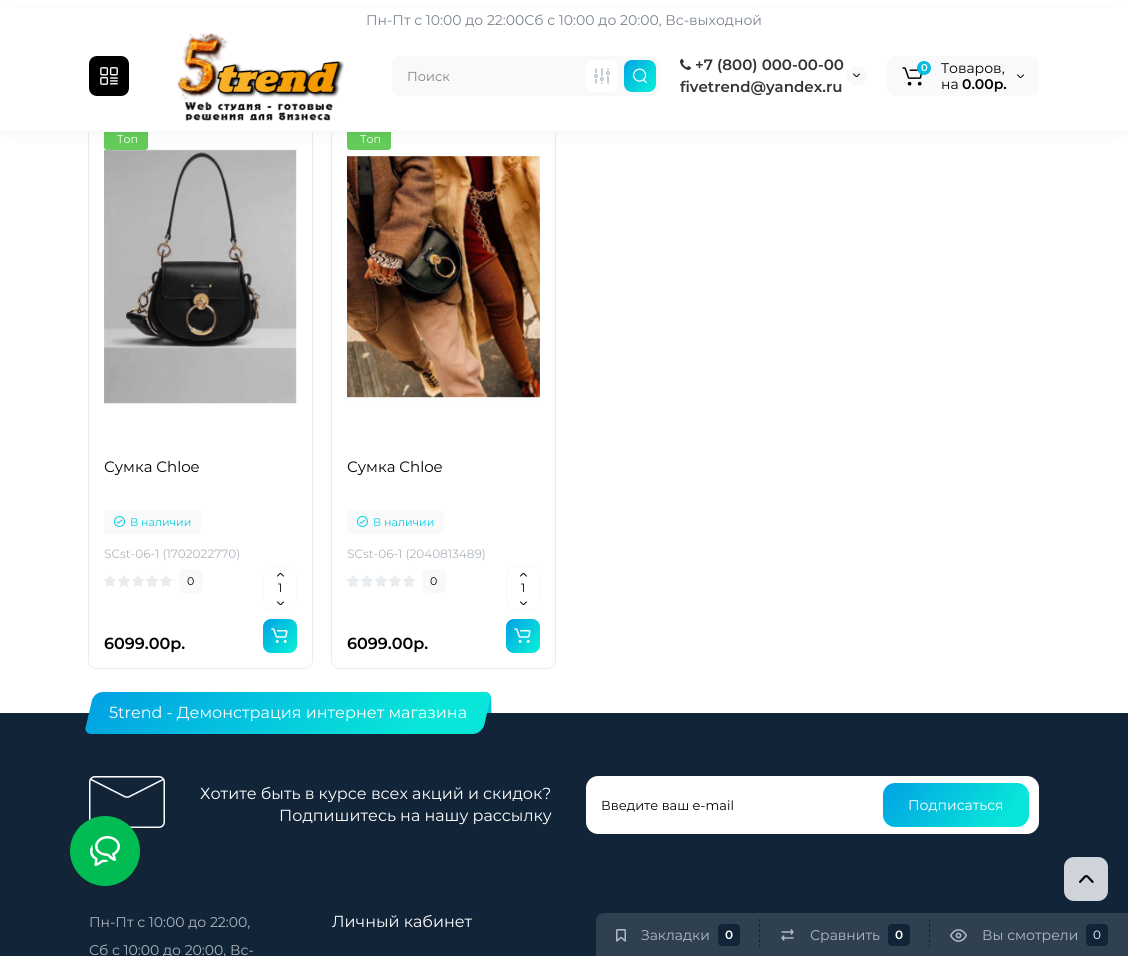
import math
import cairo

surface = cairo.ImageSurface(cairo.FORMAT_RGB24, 1128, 956)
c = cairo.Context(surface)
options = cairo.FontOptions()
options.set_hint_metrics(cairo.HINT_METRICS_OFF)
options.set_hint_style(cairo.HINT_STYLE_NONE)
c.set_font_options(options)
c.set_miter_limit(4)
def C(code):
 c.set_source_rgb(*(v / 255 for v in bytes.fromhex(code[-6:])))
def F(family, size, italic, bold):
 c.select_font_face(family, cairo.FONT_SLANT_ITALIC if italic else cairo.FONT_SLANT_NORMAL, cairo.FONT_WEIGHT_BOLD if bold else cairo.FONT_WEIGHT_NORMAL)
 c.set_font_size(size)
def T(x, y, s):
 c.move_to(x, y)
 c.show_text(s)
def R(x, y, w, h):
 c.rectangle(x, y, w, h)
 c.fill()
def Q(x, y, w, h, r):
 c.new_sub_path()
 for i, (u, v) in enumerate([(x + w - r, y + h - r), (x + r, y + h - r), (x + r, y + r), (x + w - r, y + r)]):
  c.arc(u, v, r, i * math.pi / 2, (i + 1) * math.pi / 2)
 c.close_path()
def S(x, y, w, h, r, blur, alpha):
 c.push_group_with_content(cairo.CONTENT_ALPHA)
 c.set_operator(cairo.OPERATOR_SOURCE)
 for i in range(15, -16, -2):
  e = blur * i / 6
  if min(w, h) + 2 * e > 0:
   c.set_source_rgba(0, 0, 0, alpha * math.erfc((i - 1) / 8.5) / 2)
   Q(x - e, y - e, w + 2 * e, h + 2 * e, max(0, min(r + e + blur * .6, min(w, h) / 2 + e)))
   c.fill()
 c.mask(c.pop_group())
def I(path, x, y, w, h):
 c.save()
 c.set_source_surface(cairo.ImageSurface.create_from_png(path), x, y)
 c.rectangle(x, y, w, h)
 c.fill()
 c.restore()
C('ffffff')
c.paint()
Q(88.5,112.5,224,556,8.5)
C('e9ecef')
c.set_line_width(1)
c.stroke()
C('ffffff')
Q(89,113,223,555,8)
c.fill()
I('8.png',104,149,193,255)
C('62cb59')
Q(104,128,44,22,3)
c.fill()
Q(331.5,112.5,224,556,8.5)
C('e9ecef')
c.stroke()
C('ffffff')
Q(332,113,223,555,8)
c.fill()
C('62cb59')
Q(347,128,44,22,3)
c.fill()
I('14.png',347,156,193,245)
C('000000')
S(8,16,1112,116,0,8,.06)
C('ffffff')
R(0,8,1128,123)
C('f8f9fa')
R(0,131,1128,1)
F('Montserrat',14,0,0)
C('7a8490')
T(366,25,'Пн-Пт с 10:00 до 22:00Сб с 10:00 до 20:00, Вс-выходной')
C('000000')
Q(89,56,40,40,8)
c.fill()
I('1.png',100,67,18,18)
I('2.png',177,33,168,88)
C('f8f9fa')
c.new_path()
c.move_to(400,56)
c.line_to(582,56)
c.line_to(582,96)
c.line_to(400,96)
c.curve_to(395.5,96,392,92.5,392,88)
c.line_to(392,64)
c.curve_to(392,59.5,395.5,56,400,56)
c.close_path()
c.fill()
F('Montserrat',13,0,0)
C('838383')
T(407,81,'Поиск')
C('f8f9fa')
R(582,56,43,40)
C('ffffff')
Q(586,60,32,32,8)
c.fill()
I('3.png',594,68,16,16)
C('f8f9fa')
c.new_path()
c.move_to(625,56)
c.line_to(652,56)
c.curve_to(656.5,56,660,59.5,660,64)
c.line_to(660,88)
c.curve_to(660,92.5,656.5,96,652,96)
c.line_to(625,96)
c.close_path()
c.fill()
gradient = cairo.LinearGradient(616,57,657,90)
gradient.add_color_stop_rgba(0,0,0.576,0.902,1)
gradient.add_color_stop_rgba(.86,0.031,0.902,0.851,1)
c.set_source(gradient)
Q(624,60,32,32,8)
c.fill()
I('4.png',633,68,14,16)
I('5.png',680,59,11,11)
F('Montserrat SemiBold',15,0,0)
C('333333')
T(695,70,'+7 (800) 000-00-00')
C('f8f9fa')
c.new_path()
c.arc(857,76,10,0,2 * math.pi)
c.fill()
I('6.png',853,73,7,4)
C('333333')
T(680,92,'fivetrend@yandex.ru')
C('f8f9fa')
Q(887,56,152,40,8)
c.fill()
I('7.png',902,67,20,19)
C('04bfde')
c.arc(924,68,7,0,2 * math.pi)
c.fill()
F('Montserrat SemiBold',10,0,0)
C('ffffff')
T(921,71,'0')
F('Montserrat',14,0,0)
C('000000')
T(941,73,'Tоваров,')
T(941,89,'на')
F('Montserrat SemiBold',14,0,0)
T(962,89,'0.00р.')
I('6.png',1017,74,7,4)
F('Montserrat',11,0,0)
C('ffffff')
T(117,143,'Топ')
F('Montserrat',15,0,0)
C('000000')
T(104,472,'Сумка Chloe')
C('f8f9fa')
Q(104,510,97,24,4)
c.fill()
I('9.png',114,516,11,11)
F('Montserrat',11,0,0)
C('05cfdc')
T(130,526,'В наличии')
F('Montserrat',12,0,0)
C('adb5bd')
T(104,558,'SCst-06-1 (1702022770)')
I('10.png',104,575,12,12)
I('10.png',118,575,12,12)
I('10.png',132,575,12,12)
I('10.png',146,575,12,12)
I('10.png',160,575,12,12)
C('f8f9fa')
Q(179,569,24,24,6)
c.fill()
F('Montserrat',11,0,0)
C('000000')
T(187,585,'0')
C('f8f9fa')
c.set_fill_rule(cairo.FILL_RULE_EVEN_ODD)
c.new_path()
c.move_to(271,566)
c.line_to(289,566)
c.curve_to(293.5,566,297,569.5,297,574)
c.line_to(297,580)
c.line_to(263,580)
c.line_to(263,574)
c.curve_to(263,569.5,266.5,566,271,566)
c.close_path()
c.move_to(271,567)
c.line_to(289,567)
c.curve_to(293,567,296,570,296,574)
c.line_to(296,580)
c.line_to(264,580)
c.curve_to(264,574.5,263.5,567,271,567)
c.close_path()
c.fill()
I('11.png',277,573,7,4)
R(296,580,1,16)
R(263,580,1,16)
F('Montserrat',12,0,0)
C('000000')
T(278,592,'1')
C('f8f9fa')
c.new_path()
c.move_to(263,596)
c.line_to(297,596)
c.line_to(297,603.5)
c.curve_to(295,611.5,286,610,280,610)
c.curve_to(273.5,610,263,611.5,263,602)
c.close_path()
c.move_to(264,596)
c.line_to(296,596)
c.line_to(296,603.5)
c.curve_to(294.5,610.5,285.5,609,280,609)
c.curve_to(274.5,609,264,610.5,264,602)
c.close_path()
c.fill()
I('12.png',277,601,7,4)
F('Montserrat SemiBold',16,0,0)
C('000000')
T(104,649,'6099.00р.')
gradient = cairo.LinearGradient(255,616,299,651)
gradient.add_color_stop_rgba(0,0,0.576,0.902,1)
gradient.add_color_stop_rgba(.86,0.031,0.902,0.851,1)
c.set_source(gradient)
Q(263,619,34,34,8)
c.fill()
I('13.png',271,628,17,15)
F('Montserrat',11,0,0)
C('ffffff')
T(360,143,'Топ')
F('Montserrat',15,0,0)
C('000000')
T(347,472,'Сумка Chloe')
C('f8f9fa')
Q(347,510,97,24,4)
c.fill()
I('9.png',357,516,11,11)
F('Montserrat',11,0,0)
C('05cfdc')
T(373,526,'В наличии')
F('Montserrat',12,0,0)
C('adb5bd')
T(347,558,'SCst-06-1 (2040813489)')
I('10.png',347,575,12,12)
I('10.png',361,575,12,12)
I('10.png',375,575,12,12)
I('10.png',389,575,12,12)
I('10.png',403,575,12,12)
C('f8f9fa')
Q(422,569,24,24,6)
c.fill()
F('Montserrat',11,0,0)
C('000000')
T(430,585,'0')
C('f8f9fa')
c.new_path()
c.move_to(514,566)
c.line_to(532,566)
c.curve_to(536.5,566,540,569.5,540,574)
c.line_to(540,580)
c.line_to(506,580)
c.line_to(506,574)
c.curve_to(506,569.5,509.5,566,514,566)
c.close_path()
c.move_to(514,567)
c.line_to(532,567)
c.curve_to(536,567,539,570,539,574)
c.line_to(539,580)
c.line_to(507,580)
c.curve_to(507,574.5,506.5,567,514,567)
c.close_path()
c.fill()
I('11.png',520,573,7,4)
R(539,580,1,16)
R(506,580,1,16)
F('Montserrat',12,0,0)
C('000000')
T(521,592,'1')
C('f8f9fa')
c.new_path()
c.move_to(506,596)
c.line_to(540,596)
c.line_to(540,603.5)
c.curve_to(538,611.5,529,610,523,610)
c.curve_to(516.5,610,506,611.5,506,602)
c.close_path()
c.move_to(507,596)
c.line_to(539,596)
c.line_to(539,603.5)
c.curve_to(537.5,610.5,528.5,609,523,609)
c.curve_to(517.5,609,507,610.5,507,602)
c.close_path()
c.fill()
I('12.png',520,601,7,4)
F('Montserrat SemiBold',16,0,0)
C('000000')
T(347,649,'6099.00р.')
gradient = cairo.LinearGradient(498,616,542,651)
gradient.add_color_stop_rgba(0,0,0.576,0.902,1)
gradient.add_color_stop_rgba(.86,0.031,0.902,0.851,1)
c.set_source(gradient)
Q(506,619,34,34,8)
c.fill()
I('13.png',514,628,17,15)
C('04bfde')
c.set_fill_rule(cairo.FILL_RULE_WINDING)
c.new_path()
c.move_to(468.5,692)
c.line_to(484.5,692)
c.curve_to(488,692,490.5,694.5,491,698)
c.line_to(491.5,713)
c.line_to(475.5,713)
c.curve_to(472,713,469.5,710,469,707)
c.close_path()
c.fill()
C('122538')
R(0,713,1128,243)
gradient = cairo.LinearGradient(150,569,390,819)
gradient.add_color_stop_rgba(0,0,0.576,0.902,1)
gradient.add_color_stop_rgba(.86,0.031,0.902,0.851,1)
c.set_source(gradient)
c.new_path()
c.move_to(103,692)
c.line_to(485,692)
c.curve_to(489,692,492,695,490,700)
c.line_to(484,726)
c.curve_to(482,730,478,734,473,734)
c.line_to(91,734)
c.curve_to(87,734,84,730,86,726)
c.line_to(92,700)
c.curve_to(94,695,98,692,103,692)
c.close_path()
c.fill()
F('Montserrat',16,0,0)
C('ffffff')
T(109,718,'5trend - Демонстрация интернет магазина')
Q(89.75,776.75,74.5,50.5,5.25)
c.set_line_width(1.5)
c.stroke()
c.new_path()
c.move_to(91,779.5)
c.line_to(123.5,796)
c.curve_to(125.5,797.5,128.5,797.5,130.5,796)
c.line_to(163,779.5)
c.stroke()
T(200,799,'Хотите быть в курсе всех акций и скидок?')
T(279,821,'Подпишитесь на нашу рассылку')
c.new_path()
c.move_to(598,776)
c.line_to(884,776)
c.line_to(884,834)
c.line_to(598,834)
c.curve_to(591.5,834,586,828.5,586,822)
c.line_to(586,788)
c.curve_to(586,781.5,591.5,776,598,776)
c.close_path()
c.fill()
F('Montserrat',13,0,0)
C('000000')
T(601,810,'Введите ваш e-mail')
C('ffffff')
c.new_path()
c.move_to(884,776)
c.line_to(1027,776)
c.curve_to(1033.5,776,1039,781.5,1039,788)
c.line_to(1039,822)
c.curve_to(1039,828.5,1033.5,834,1027,834)
c.line_to(884,834)
c.close_path()
c.fill()
gradient = cairo.LinearGradient(882,745,1011,849)
gradient.add_color_stop_rgba(0,0,0.576,0.902,1)
gradient.add_color_stop_rgba(.86,0.031,0.902,0.851,1)
c.set_source(gradient)
Q(883,783,146,44,12)
c.fill()
F('Montserrat',14,0,0)
C('ffffff')
T(908,810,'Подписаться')
C('adb5bd')
T(89,927,'Пн-Пт с 10:00 до 22:00,')
T(89,955,'Сб с 10:00 до 20:00, Вс-')
F('Montserrat',16,0,0)
C('ffffff')
T(332,927,'Личный кабинет')
C('000000')
S(73,820,70,70,35,9,.08)
C('00bc52')
c.arc(105,851,35,0,2 * math.pi)
c.fill()
I('15.png',90,836,30,30)
C('ced4da')
Q(1064,857,44,44,10)
c.fill()
I('16.png',1079,875,15,8)
C('2f4050')
c.new_path()
c.move_to(604,913)
c.line_to(1128,913)
c.line_to(1128,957)
c.line_to(596,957)
c.line_to(596,921)
c.curve_to(596,916.5,599.5,913,604,913)
c.close_path()
c.fill()
I('17.png',616,929,10,13)
F('Montserrat',14,0,0)
C('b2bbc5')
T(641,940,'Закладки')
C('122538')
Q(718,924,22,22,4)
c.fill()
F('Montserrat SemiBold',12,0,0)
C('ffffff')
T(725,939,'0')
c.new_path()
c.move_to(759.5,919)
c.line_to(759.5,947)
C('122538')
c.set_line_width(1)
c.set_dash([3,2])
c.stroke()
I('18.png',781,929,13,12)
F('Montserrat',14,0,0)
C('b2bbc5')
T(810,940,'Сравнить')
C('122538')
Q(888,924,22,22,4)
c.fill()
F('Montserrat SemiBold',12,0,0)
C('ffffff')
T(895,939,'0')
c.new_path()
c.move_to(929.5,919)
c.line_to(929.5,947)
C('122538')
c.stroke()
I('19.png',950,929,17,13)
F('Montserrat',14,0,0)
C('b2bbc5')
T(982,940,'Вы смотрели')
C('122538')
Q(1086,924,22,22,4)
c.fill()
F('Montserrat',12,0,0)
C('ffffff')
T(1093,939,'0')
surface.write_to_png('o.png')
